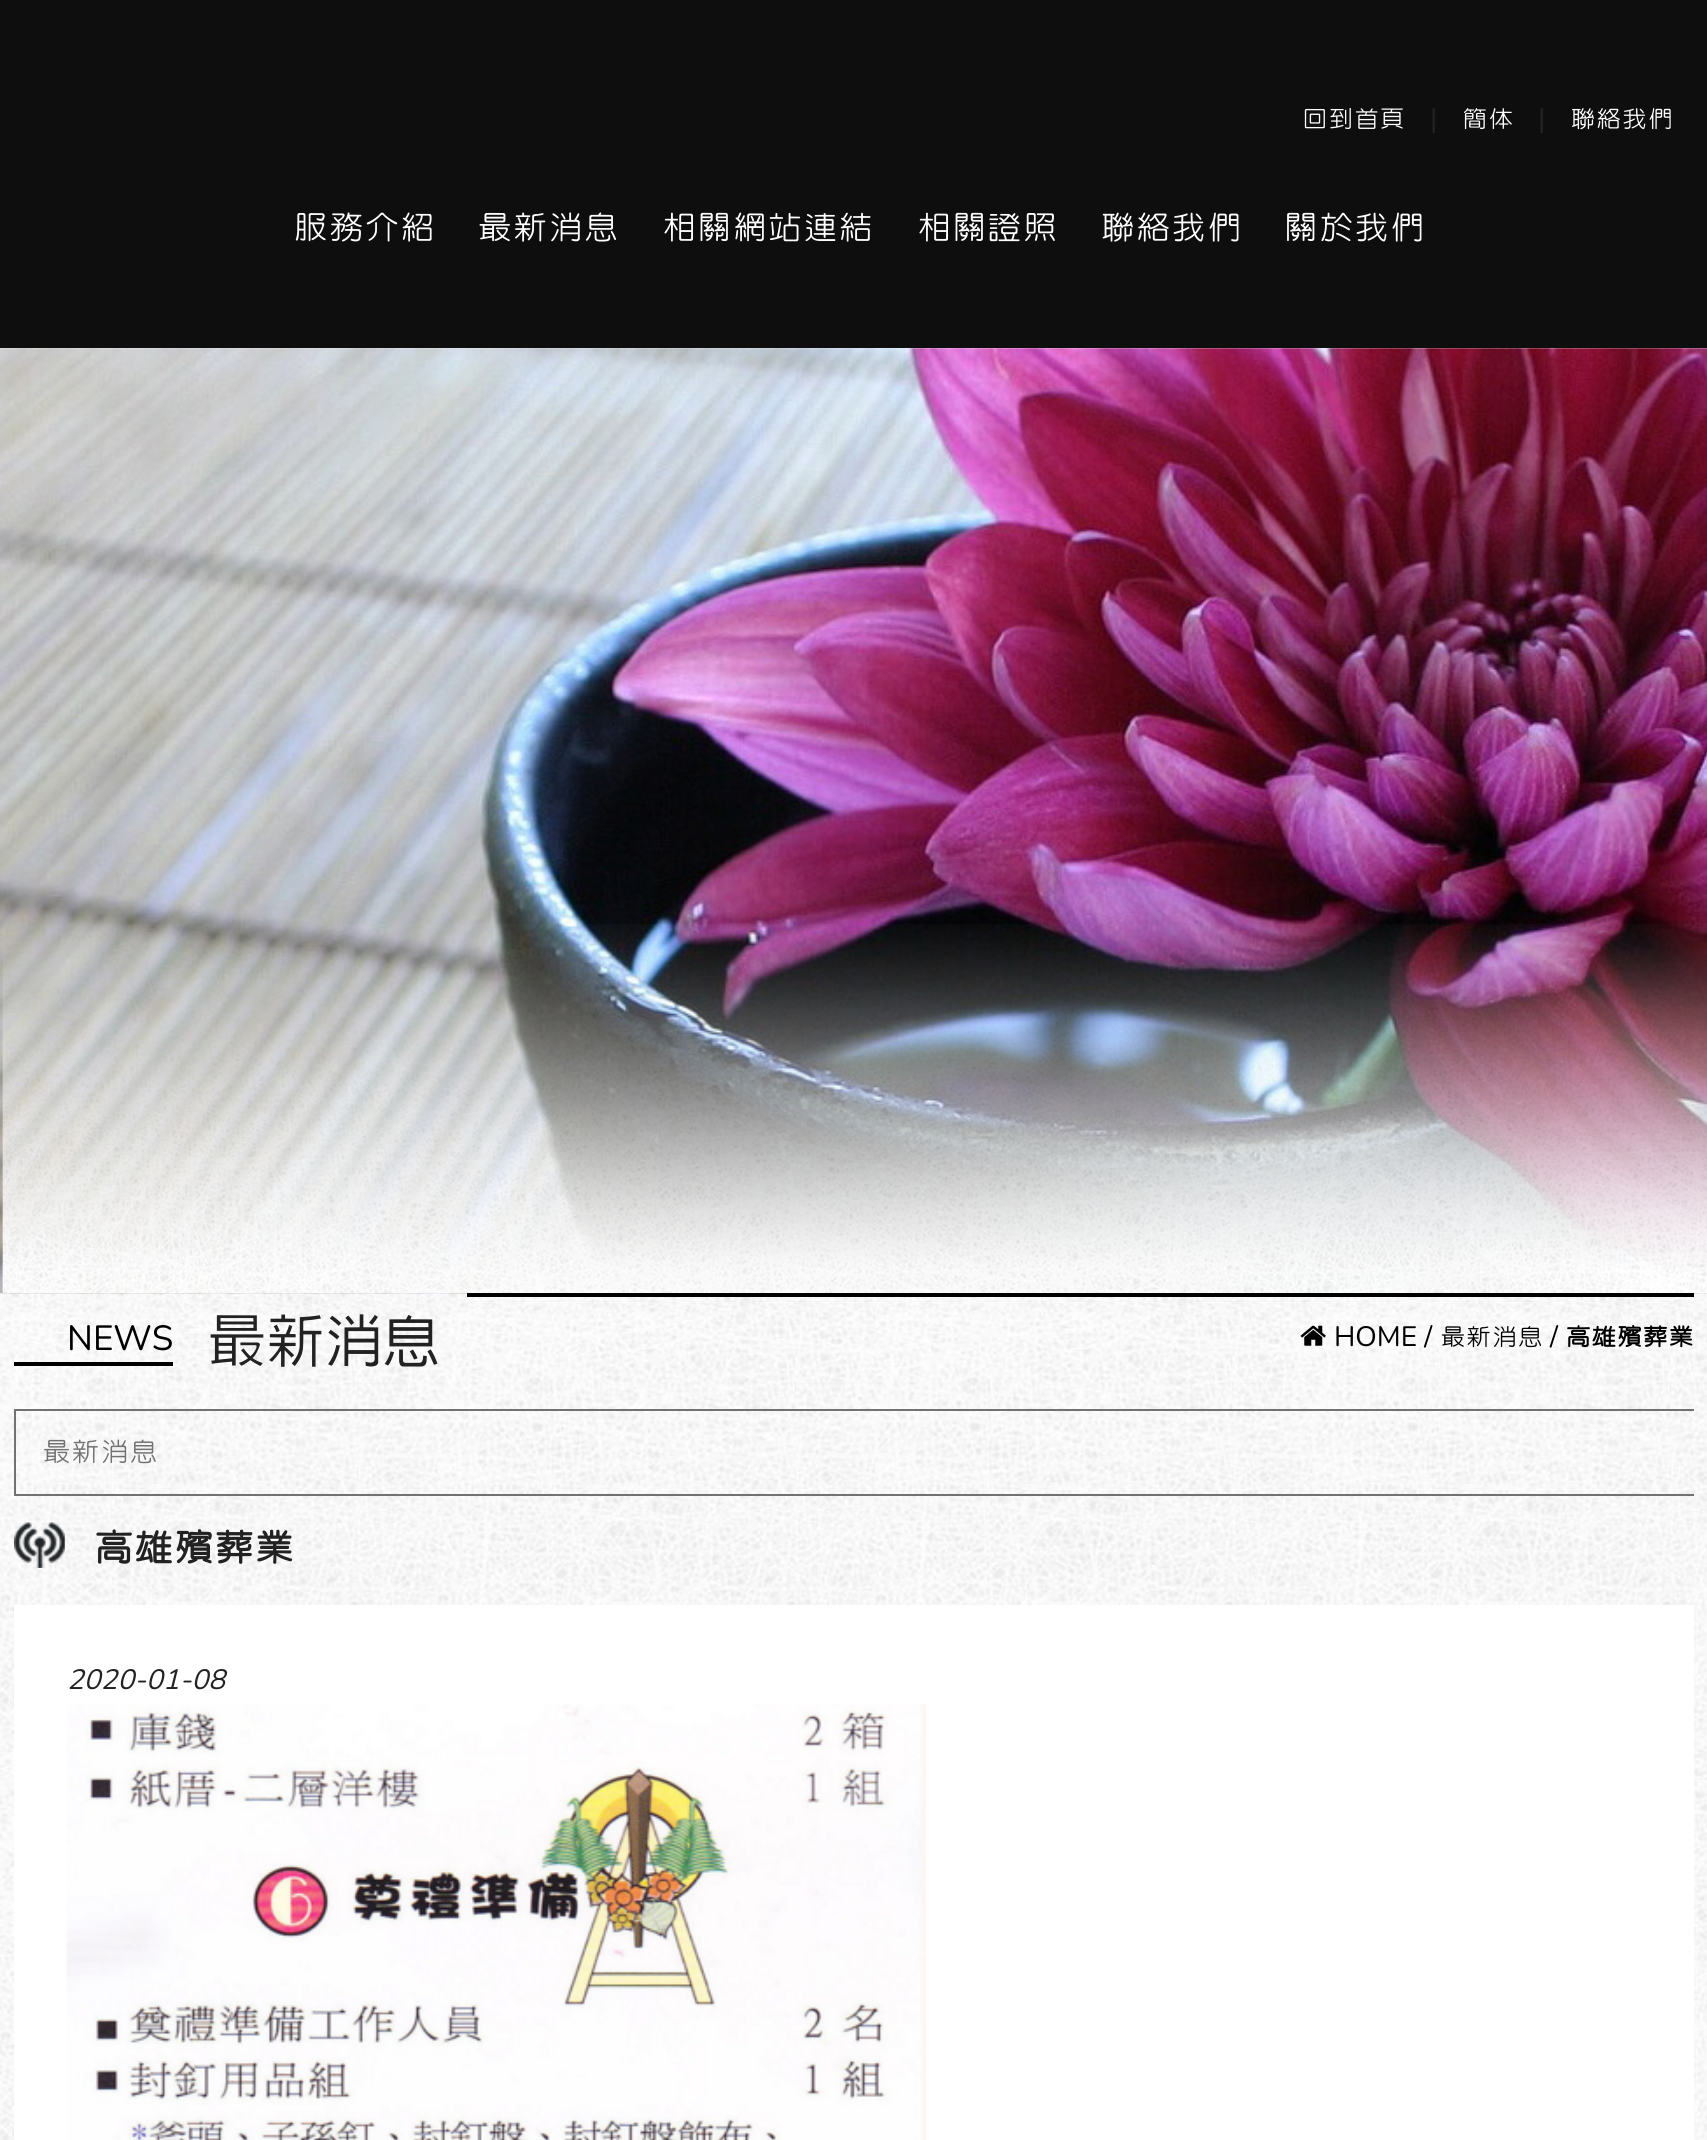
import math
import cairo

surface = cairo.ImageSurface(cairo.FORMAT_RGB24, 1707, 2140)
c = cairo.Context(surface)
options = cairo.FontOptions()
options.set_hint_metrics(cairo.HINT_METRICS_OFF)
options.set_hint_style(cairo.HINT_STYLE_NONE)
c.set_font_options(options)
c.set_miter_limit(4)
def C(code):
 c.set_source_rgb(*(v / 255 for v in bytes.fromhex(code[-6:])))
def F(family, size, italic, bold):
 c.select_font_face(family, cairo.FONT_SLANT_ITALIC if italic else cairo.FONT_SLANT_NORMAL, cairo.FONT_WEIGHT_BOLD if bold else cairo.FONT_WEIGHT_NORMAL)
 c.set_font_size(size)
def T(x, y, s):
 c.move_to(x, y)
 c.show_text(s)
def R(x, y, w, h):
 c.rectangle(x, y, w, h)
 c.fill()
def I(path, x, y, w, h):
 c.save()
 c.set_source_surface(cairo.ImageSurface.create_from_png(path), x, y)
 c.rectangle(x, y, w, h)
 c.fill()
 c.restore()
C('ffffff')
c.paint()
I('1.png',0,348,1707,1792)
C('0e0e0e')
R(0,0,1707,348)
F('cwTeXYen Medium',28,0,0)
C('ffffff')
T(1302,128,'回到首頁')
F('Nunito ExtraLight',28,0,0)
C('222222')
T(1430,128,'|')
F('cwTeXYen Medium',28,0,0)
C('ffffff')
T(1462,128,'簡体')
F('Nunito ExtraLight',28,0,0)
C('222222')
T(1538,128,'|')
F('cwTeXYen Medium',28,0,0)
C('ffffff')
T(1570,128,'聯絡我們')
F('cwTeXYen Medium',38.5,0,0)
T(293,240,'服務介紹')
T(477,240,'最新消息')
T(661,240,'相關網站連結')
T(916,240,'相關證照')
T(1100,240,'聯絡我們')
T(1283,240,'關於我們')
I('2.png',0,348,1707,946)
I('3.png',2,924,1705,370)
C('000000')
R(14,1362,159,4)
F('Nunito ExtraLight',35,0,0)
T(67,1350,'NEWS')
F('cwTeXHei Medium',58,0,0)
C('222222')
T(208,1360,'最新消息')
C('000000')
R(467,1293,1227,4)
I('4.png',1300,1325,26,21)
F('Nunito ExtraLight',28,0,0)
T(1334,1346,'HOME /')
F('cwTeXYen Medium',28,0,0)
T(1440,1346,'最新消息')
F('Nunito ExtraLight',28,0,0)
T(1550,1346,'/')
F('cwTeXYen',28,0,1)
T(1565,1346,'高雄殯葬業')
c.save()
c.rectangle(14,1293,1680,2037)
c.clip()
c.rectangle(15,1410,1683,85)
C('727272')
c.stroke()
c.restore()
F('cwTeXYen Medium',31.5,0,0)
C('727272')
T(42,1462,'最新消息')
I('5.png',14,1522,51,46)
F('cwTeXYen',43.75,0,1)
C('222222')
T(93,1562,'高雄殯葬業')
C('ffffff')
R(14,1605,1680,535)
F('Nunito ExtraLight',28,1,0)
C('222222')
T(67,1689,'2020-01-08')
I('6.png',66,1704,860,436)
surface.write_to_png('o.png')
